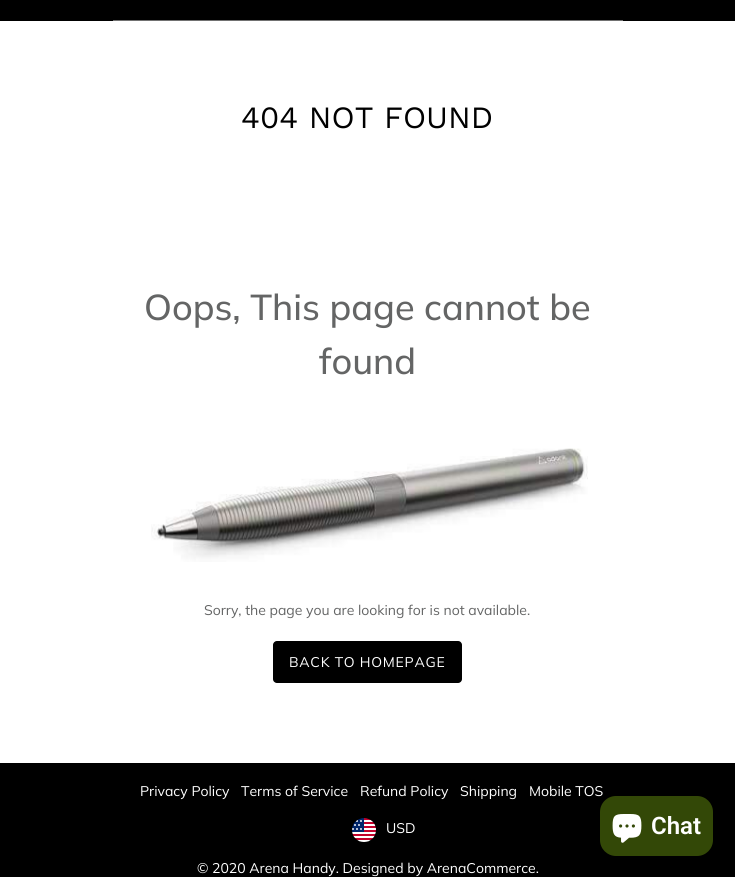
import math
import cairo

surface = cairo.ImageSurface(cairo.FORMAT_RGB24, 735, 877)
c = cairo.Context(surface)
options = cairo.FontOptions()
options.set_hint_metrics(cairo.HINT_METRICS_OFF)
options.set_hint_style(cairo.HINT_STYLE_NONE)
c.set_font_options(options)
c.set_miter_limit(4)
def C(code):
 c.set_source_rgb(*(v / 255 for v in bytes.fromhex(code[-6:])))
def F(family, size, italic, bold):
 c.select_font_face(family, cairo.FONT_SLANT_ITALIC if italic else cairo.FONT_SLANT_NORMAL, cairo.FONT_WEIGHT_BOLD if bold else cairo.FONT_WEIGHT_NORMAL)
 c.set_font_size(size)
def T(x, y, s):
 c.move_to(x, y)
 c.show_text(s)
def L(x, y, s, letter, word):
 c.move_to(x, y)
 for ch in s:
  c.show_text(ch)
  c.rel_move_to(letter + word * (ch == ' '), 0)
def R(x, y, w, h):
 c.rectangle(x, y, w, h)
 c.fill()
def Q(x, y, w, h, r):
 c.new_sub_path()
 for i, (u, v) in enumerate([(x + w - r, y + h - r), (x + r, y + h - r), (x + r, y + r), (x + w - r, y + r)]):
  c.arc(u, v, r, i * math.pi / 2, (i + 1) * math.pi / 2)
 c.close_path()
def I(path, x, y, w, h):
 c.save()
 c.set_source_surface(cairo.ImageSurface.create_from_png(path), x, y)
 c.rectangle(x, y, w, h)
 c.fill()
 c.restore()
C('ffffff')
c.paint()
C('000000')
R(0,0,735,21)
C('717171')
R(113,20,510,1)
F('Work Sans',31,0,0)
C('000000')
T(241,128,'404 NOT FOUND')
F('Muli Medium',36,0,0)
C('646565')
T(144,320,'Oops, This page cannot be')
T(319,374,'found')
I('1.png',151,448,437,114)
F('Muli',14,0,0)
T(204,615,'Sorry, the page you are looking for is not available.')
C('000000')
Q(273,641,189,42,4)
c.fill()
C('ffffff')
L(289,667,'BACK TO HOMEPAGE',.75,0)
C('000000')
R(0,763,735,114)
C('ffffff')
T(140,796,'Privacy Policy')
T(241,796,'Terms of Service')
T(360,796,'Refund Policy')
T(460,796,'Shipping')
T(529,796,'Mobile TOS')
I('2.png',352,818,24,24)
T(386,833,'USD')
T(197,873,'© 2020 Arena Handy. Designed by ArenaCommerce.')
C('334807')
Q(600,796,113,60,16)
c.fill()
I('3.png',612,814,30,29)
F('Roboto SemiBold',24,0,0)
C('ffffff')
T(651,834,'Chat')
surface.write_to_png('o.png')
